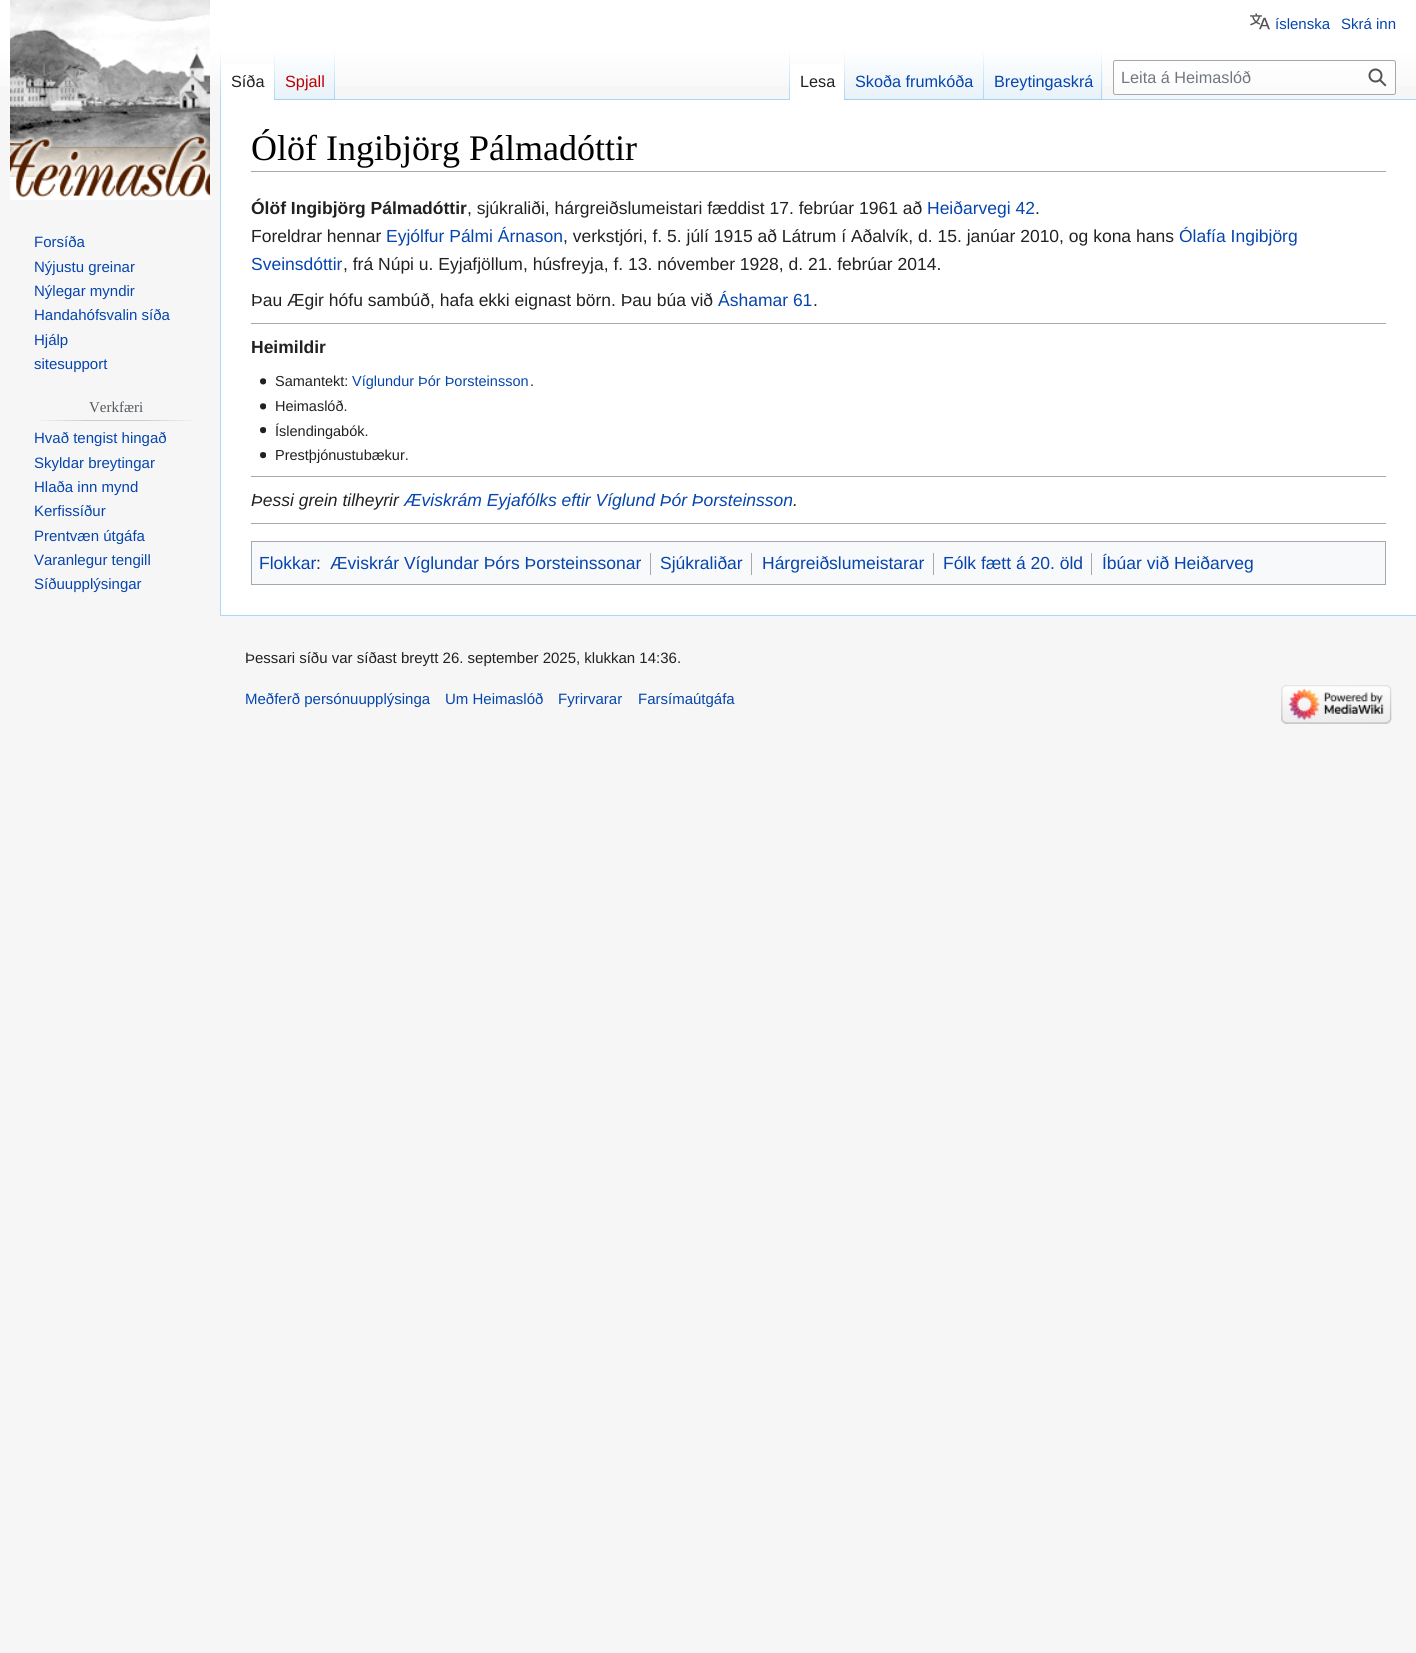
import math
import cairo

surface = cairo.ImageSurface(cairo.FORMAT_RGB24, 1416, 1653)
c = cairo.Context(surface)
options = cairo.FontOptions()
options.set_hint_metrics(cairo.HINT_METRICS_OFF)
options.set_hint_style(cairo.HINT_STYLE_NONE)
c.set_font_options(options)
c.set_miter_limit(4)
def C(code):
 c.set_source_rgb(*(v / 255 for v in bytes.fromhex(code[-6:])))
def F(family, size, italic, bold):
 c.select_font_face(family, cairo.FONT_SLANT_ITALIC if italic else cairo.FONT_SLANT_NORMAL, cairo.FONT_WEIGHT_BOLD if bold else cairo.FONT_WEIGHT_NORMAL)
 c.set_font_size(size)
def T(x, y, s):
 c.move_to(x, y)
 c.show_text(s)
def R(x, y, w, h):
 c.rectangle(x, y, w, h)
 c.fill()
def Q(x, y, w, h, r):
 c.new_sub_path()
 for i, (u, v) in enumerate([(x + w - r, y + h - r), (x + r, y + h - r), (x + r, y + r), (x + w - r, y + r)]):
  c.arc(u, v, r, i * math.pi / 2, (i + 1) * math.pi / 2)
 c.close_path()
def I(path, x, y, w, h):
 c.save()
 c.set_source_surface(cairo.ImageSurface.create_from_png(path), x, y)
 c.rectangle(x, y, w, h)
 c.fill()
 c.restore()
C('f6f6f6')
c.paint()
gradient = cairo.LinearGradient(708,0,708,100)
gradient.add_color_stop_rgba(.5,1,1,1,1)
gradient.add_color_stop_rgba(1,0.965,0.965,0.965,1)
c.set_source(gradient)
R(0,0,1416,86)
I('1.png',1250,13,20,17)
F('Liberation Sans',15,0,0)
C('0645ad')
T(1275,29,'íslenska')
T(1341,29,'Skrá inn')
C('a7d7f9')
R(220,615,1196,1)
R(220,99,1,517)
gradient = cairo.LinearGradient(221,50,221,100)
gradient.add_color_stop_rgba(0,0.655,0.843,0.976,0)
gradient.add_color_stop_rgba(1,0.655,0.843,0.976,1)
c.set_source(gradient)
R(220,50,1,50)
C('ffffff')
R(221,64,53,36)
gradient = cairo.LinearGradient(274,50,274,100)
gradient.add_color_stop_rgba(0,1,1,1,1)
gradient.add_color_stop_rgba(1,0.655,0.843,0.976,1)
c.set_source(gradient)
R(274,50,1,50)
F('Liberation Sans',16.25,0,0)
C('202122')
T(231,87,'Síða')
gradient = cairo.LinearGradient(305,100,305,50)
gradient.add_color_stop_rgba(0,0.467,0.757,0.965,1)
gradient.add_color_stop_rgba(.03,0.91,0.949,0.973,1)
gradient.add_color_stop_rgba(1,1,1,1,1)
c.set_source(gradient)
R(275,57,60,43)
gradient = cairo.LinearGradient(334,50,334,100)
gradient.add_color_stop_rgba(0,0.655,0.843,0.976,0)
gradient.add_color_stop_rgba(1,0.655,0.843,0.976,1)
c.set_source(gradient)
R(334,50,1,50)
C('ba0000')
T(285,87,'Spjall')
C('a7d7f9')
R(335,99,1081,1)
gradient = cairo.LinearGradient(789,50,789,100)
gradient.add_color_stop_rgba(0,0.655,0.843,0.976,0)
gradient.add_color_stop_rgba(1,0.655,0.843,0.976,1)
c.set_source(gradient)
R(789,50,1,50)
C('ffffff')
R(790,64,54,36)
gradient = cairo.LinearGradient(844,50,844,100)
gradient.add_color_stop_rgba(0,1,1,1,1)
gradient.add_color_stop_rgba(1,0.655,0.843,0.976,1)
c.set_source(gradient)
R(844,50,1,50)
C('202122')
T(800,87,'Lesa')
gradient = cairo.LinearGradient(914,100,914,50)
gradient.add_color_stop_rgba(0,0.467,0.757,0.965,1)
gradient.add_color_stop_rgba(.03,0.91,0.949,0.973,1)
gradient.add_color_stop_rgba(1,1,1,1,1)
c.set_source(gradient)
R(845,57,139,43)
gradient = cairo.LinearGradient(983,50,983,100)
gradient.add_color_stop_rgba(0,0.655,0.843,0.976,0)
gradient.add_color_stop_rgba(1,0.655,0.843,0.976,1)
c.set_source(gradient)
R(983,50,1,50)
C('0645ad')
T(855,87,'Skoða frumkóða')
gradient = cairo.LinearGradient(1043,100,1043,50)
gradient.add_color_stop_rgba(0,0.467,0.757,0.965,1)
gradient.add_color_stop_rgba(.03,0.91,0.949,0.973,1)
gradient.add_color_stop_rgba(1,1,1,1,1)
c.set_source(gradient)
R(984,57,119,43)
gradient = cairo.LinearGradient(1102,50,1102,100)
gradient.add_color_stop_rgba(0,0.655,0.843,0.976,0)
gradient.add_color_stop_rgba(1,0.655,0.843,0.976,1)
c.set_source(gradient)
R(1101,50,1,50)
C('0645ad')
T(994,87,'Breytingaskrá')
c.set_source_rgba(1,1,1,0.5)
Q(1113.5,60.5,282,34,2)
c.fill_preserve()
C('a2a9b1')
c.set_line_width(1)
c.stroke()
C('72777d')
T(1121,83,'Leita á Heimaslóð')
I('2.png',1368,68,19,19)
I('3.png',10,0,200,200)
F('Liberation Sans',15,0,0)
C('0645ad')
T(34,247,'Forsíða')
T(34,272,'Nýjustu greinar')
T(34,296,'Nýlegar myndir')
T(34,320,'Handahófsvalin síða')
T(34,345,'Hjálp')
T(34,369,'sitesupport')
gradient = cairo.LinearGradient(34,421,198,421)
gradient.add_color_stop_rgba(0,0.965,0.965,0.965,1)
gradient.add_color_stop_rgba(.33,0.784,0.8,0.82,1)
gradient.add_color_stop_rgba(.66,0.784,0.8,0.82,1)
gradient.add_color_stop_rgba(1,0.965,0.965,0.965,1)
c.set_source(gradient)
R(34,420,164,1)
F('Liberation Serif',15,0,0)
C('54595d')
T(89,412,'Verkfæri')
F('Liberation Sans',15,0,0)
C('0645ad')
T(34,443,'Hvað tengist hingað')
T(34,468,'Skyldar breytingar')
T(34,492,'Hlaða inn mynd')
T(34,516,'Kerfissíður')
T(34,541,'Prentvæn útgáfa')
T(34,565,'Varanlegur tengill')
T(34,589,'Síðuupplýsingar')
C('ffffff')
R(221,100,1195,515)
C('a2a9b1')
R(251,171,1135,1)
F('Liberation Serif',36,0,0)
C('000000')
T(251,160,'Ólöf Ingibjörg Pálmadóttir')
F('Liberation Sans',17.5,0,1)
C('202122')
T(251,214,'Ólöf Ingibjörg Pálmadóttir')
F('Liberation Sans',17.5,0,0)
T(467,214,', sjúkraliði, hárgreiðslumeistari fæddist 17. febrúar 1961 að')
C('0645ad')
T(927,214,'Heiðarvegi 42')
C('202122')
T(1035,214,'.')
T(251,242,'Foreldrar hennar')
C('0645ad')
T(386,242,'Eyjólfur Pálmi Árnason')
C('202122')
T(563,242,', verkstjóri, f. 5. júlí 1915 að Látrum í Aðalvík, d. 15. janúar 2010, og kona hans')
C('0645ad')
T(1179,242,'Ólafía Ingibjörg')
T(251,270,'Sveinsdóttir')
C('202122')
T(343,270,', frá Núpi u. Eyjafjöllum, húsfreyja, f. 13. nóvember 1928, d. 21. febrúar 2014.')
T(251,306,'Þau Ægir hófu sambúð, hafa ekki eignast börn. Þau búa við')
C('0645ad')
T(718,306,'Áshamar 61')
C('202122')
T(813,306,'.')
C('a2a9b1')
R(251,323,1135,1)
F('Liberation Sans',17.5,0,1)
C('202122')
T(251,353,'Heimildir')
I('4.png',260,378,6,7)
F('Liberation Sans',14.5,0,0)
T(275,386,'Samantekt:')
C('0645ad')
T(352,386,'Víglundur Þór Þorsteinsson')
C('202122')
T(530,386,'.')
I('4.png',260,403,6,7)
T(275,411,'Heimaslóð.')
I('5.png',260,427,6,7)
T(275,436,'Íslendingabók.')
I('5.png',260,452,6,7)
T(275,460,'Prestþjónustubækur.')
C('a2a9b1')
R(251,476,1135,1)
F('Liberation Sans',17.5,1,0)
C('202122')
T(251,506,'Þessi grein tilheyrir')
C('0645ad')
T(404,506,'Æviskrám Eyjafólks eftir Víglund Þór Þorsteinsson')
C('202122')
T(793,506,'.')
C('a2a9b1')
R(251,523,1135,1)
C('f8f9fa')
c.rectangle(251.5,541.5,1134,43)
c.fill_preserve()
C('a2a9b1')
c.stroke()
F('Liberation Sans',17.5,0,0)
C('0645ad')
T(259,569,'Flokkar')
C('202122')
T(316,569,':')
C('0645ad')
T(330,569,'Æviskrár Víglundar Þórs Þorsteinssonar')
C('a2a9b1')
R(650,553,1,22)
C('0645ad')
T(660,569,'Sjúkraliðar')
C('a2a9b1')
R(751,553,1,22)
C('0645ad')
T(762,569,'Hárgreiðslumeistarar')
C('a2a9b1')
R(933,553,1,22)
C('0645ad')
T(943,569,'Fólk fætt á 20. öld')
C('a2a9b1')
R(1091,553,1,22)
C('0645ad')
T(1102,569,'Íbúar við Heiðarveg')
F('Liberation Sans',15,0,0)
C('202122')
T(245,663,'Þessari síðu var síðast breytt 26. september 2025, klukkan 14:36.')
C('0645ad')
T(245,704,'Meðferð persónuupplýsinga')
T(445,704,'Um Heimaslóð')
T(558,704,'Fyrirvarar')
T(638,704,'Farsímaútgáfa')
I('6.png',1281,685,111,39)
surface.write_to_png('o.png')
